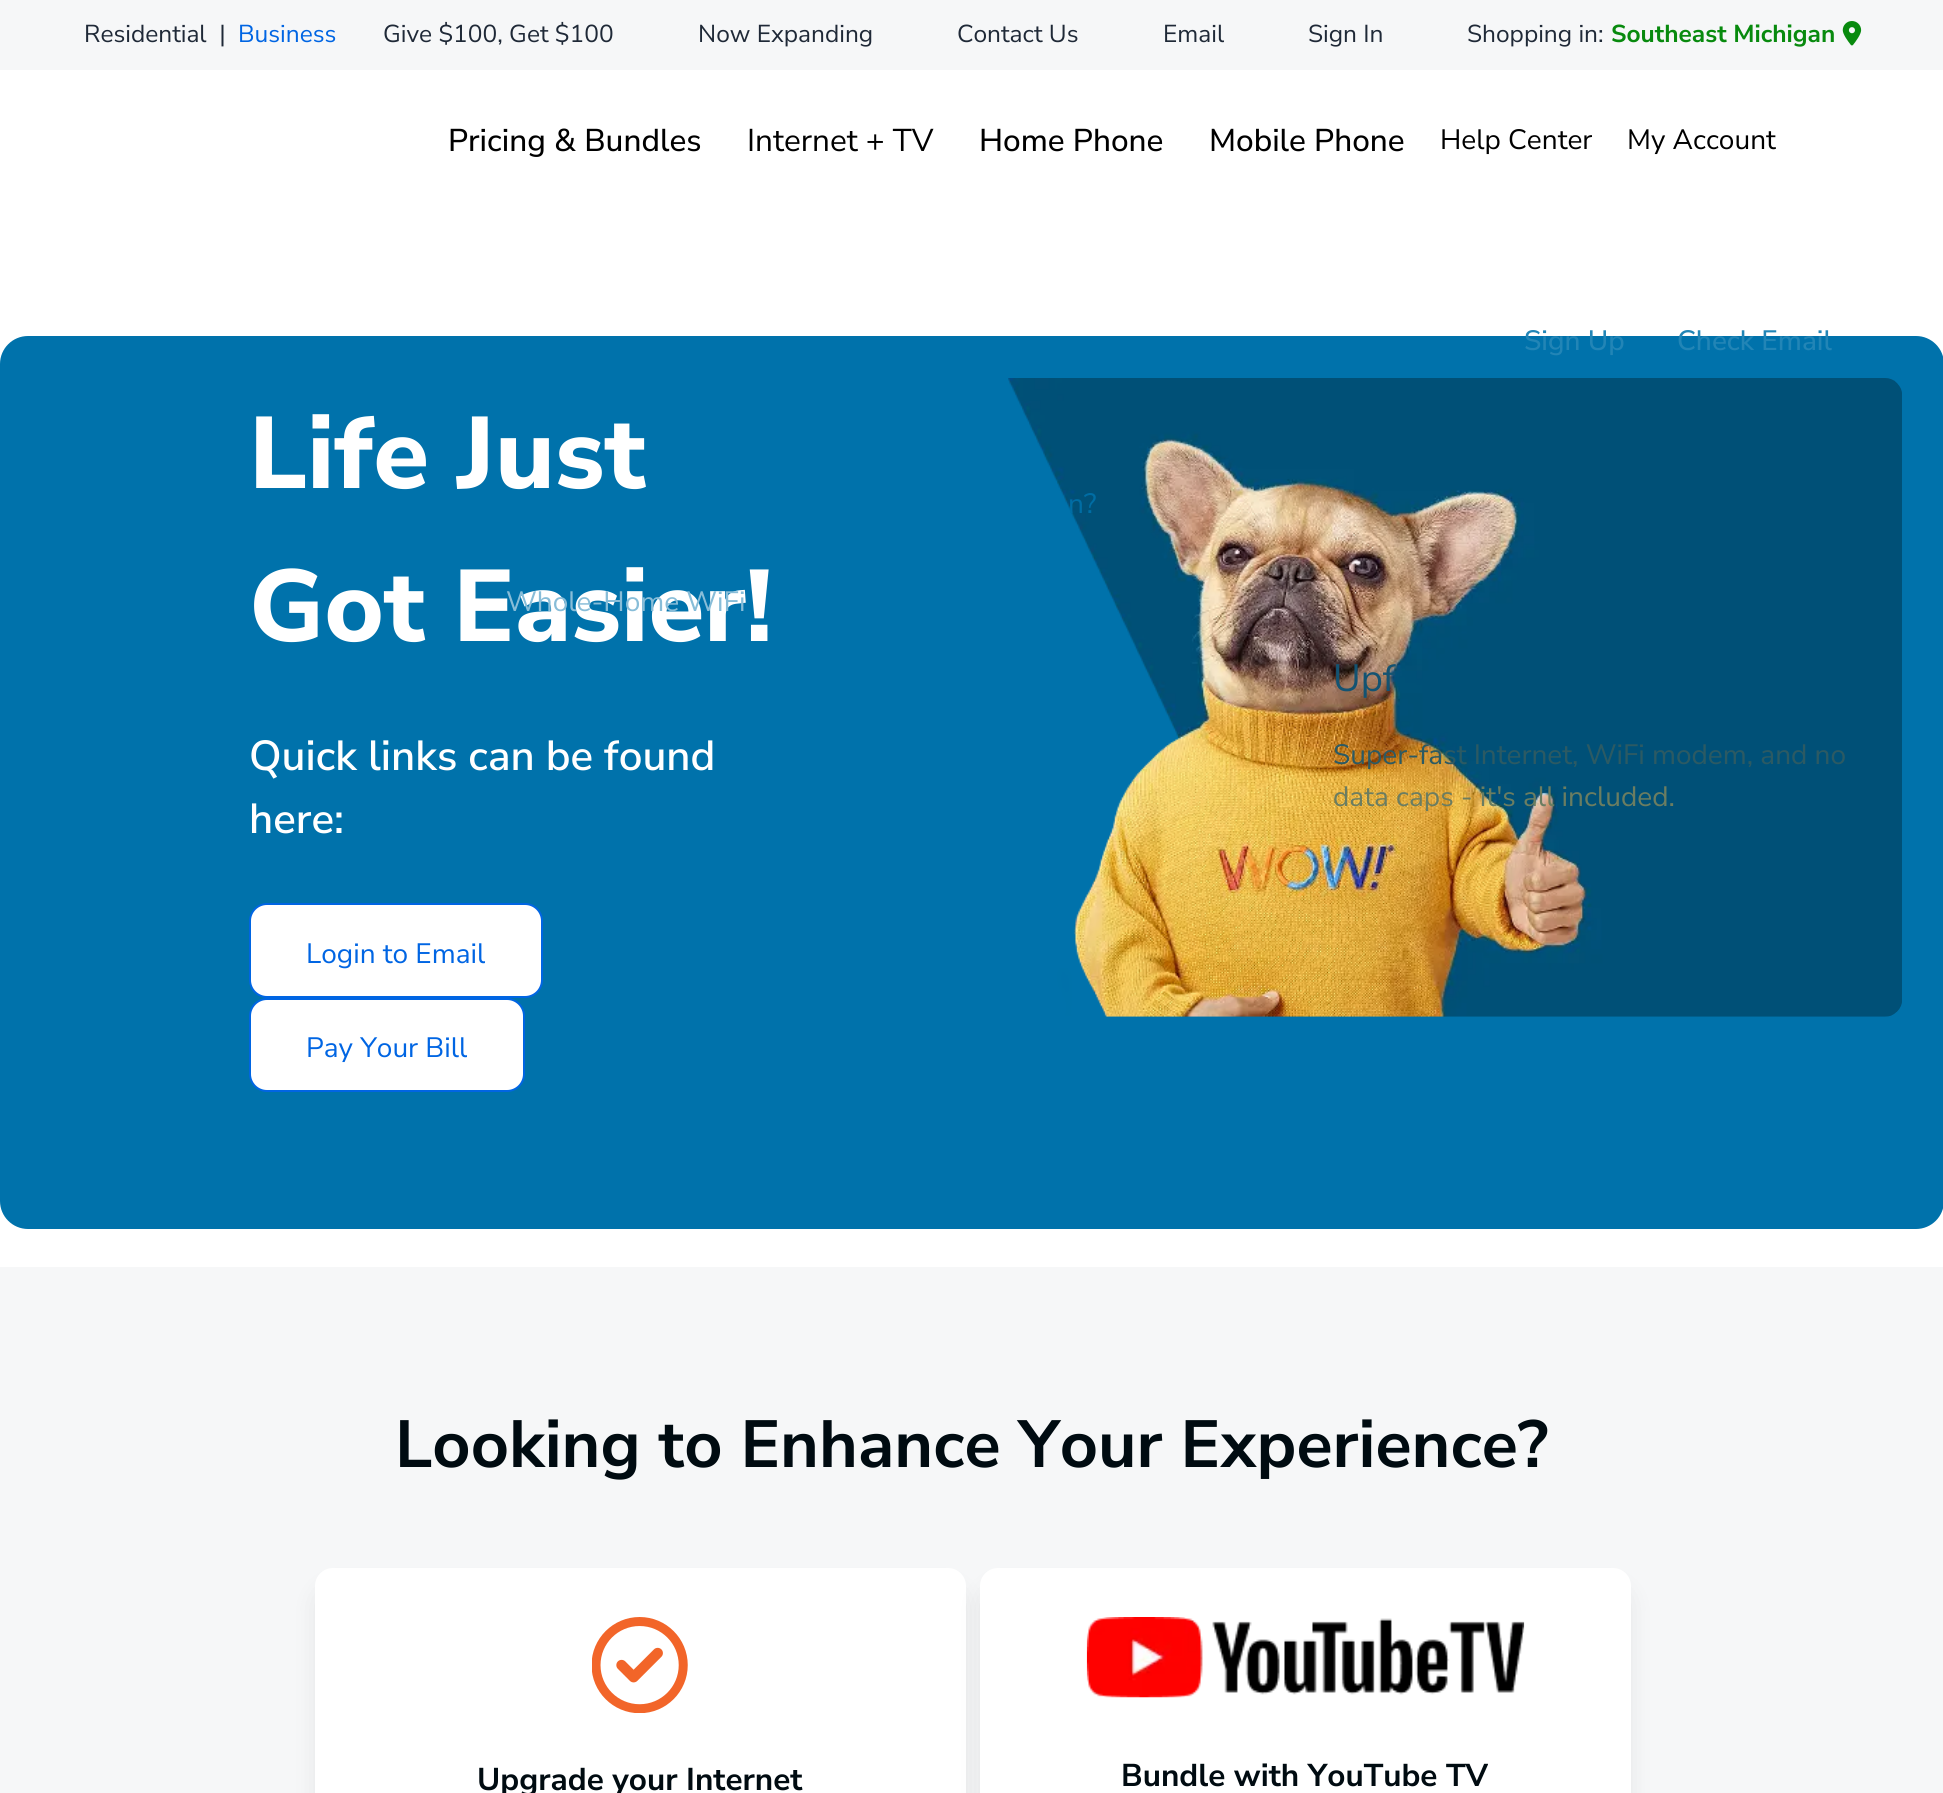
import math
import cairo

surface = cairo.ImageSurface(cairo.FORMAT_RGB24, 1943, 1793)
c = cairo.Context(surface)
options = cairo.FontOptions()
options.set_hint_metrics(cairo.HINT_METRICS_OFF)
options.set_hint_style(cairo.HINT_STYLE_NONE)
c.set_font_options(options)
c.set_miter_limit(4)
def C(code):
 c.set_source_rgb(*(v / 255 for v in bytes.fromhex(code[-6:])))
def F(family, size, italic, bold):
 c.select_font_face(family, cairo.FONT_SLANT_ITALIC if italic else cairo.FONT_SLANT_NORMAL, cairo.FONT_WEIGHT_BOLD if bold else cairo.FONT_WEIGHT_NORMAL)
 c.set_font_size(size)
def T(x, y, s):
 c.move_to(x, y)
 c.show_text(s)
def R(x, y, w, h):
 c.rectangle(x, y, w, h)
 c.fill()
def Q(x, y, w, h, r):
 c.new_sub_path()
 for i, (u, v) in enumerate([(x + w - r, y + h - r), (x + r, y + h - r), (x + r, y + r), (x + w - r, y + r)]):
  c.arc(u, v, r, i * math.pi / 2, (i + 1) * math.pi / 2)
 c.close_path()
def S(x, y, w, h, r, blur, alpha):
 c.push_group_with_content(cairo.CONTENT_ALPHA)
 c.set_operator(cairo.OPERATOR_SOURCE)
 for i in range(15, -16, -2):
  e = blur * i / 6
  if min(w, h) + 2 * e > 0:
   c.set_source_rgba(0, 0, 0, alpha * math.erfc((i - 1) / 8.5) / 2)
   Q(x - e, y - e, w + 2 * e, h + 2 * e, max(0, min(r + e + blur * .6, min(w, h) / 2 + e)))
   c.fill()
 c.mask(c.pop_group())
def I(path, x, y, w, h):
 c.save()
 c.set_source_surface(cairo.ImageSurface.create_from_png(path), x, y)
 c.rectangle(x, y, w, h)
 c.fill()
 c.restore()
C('ffffff')
c.paint()
C('f6f7f8')
R(0,0,1943,70)
F('Nunito Sans',24.5,0,0)
C('1f2937')
T(84,42,'Residential  |')
C('0065e3')
T(238,42,'Business')
C('1f2937')
T(383,42,'Give $100, Get $100')
T(698,42,'Now Expanding')
T(957,42,'Contact Us')
T(1163,42,'Email')
T(1308,42,'Sign In')
T(1467,42,'Shopping in:')
F('Nunito Sans',24.5,0,1)
C('088a0e')
T(1611,42,'Southeast Michigan')
I('1.png',1842,21,20,25)
F('Nunito Sans Medium',31.5,0,0)
C('000000')
T(448,151,'Pricing & Bundles')
F('Nunito Sans',31.5,0,0)
T(747,151,'Internet + TV')
C('0072ab')
Q(0,336,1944,893,28)
c.fill()
I('2.png',1008,378,894,639)
F('Nunito Sans',28,0,0)
C('006da4')
T(1068,513,'n?')
F('Nunito Sans ExtraBold',101.5,0,0)
C('ffffff')
T(249,641,'Got Easier!')
F('Nunito Sans',28,0,0)
C('88bdd8')
T(506,611,'Whole-Home WiFi')
F('Nunito Sans',38,0,0)
C('135372')
T(1333,691,'Upf')
F('Nunito Sans',28,0,0)
C('2c5a63')
T(1333,764,'Super-fast Internet, WiFi modem, and no')
C('6b7d61')
T(1333,806,'data caps - it\'s all included.')
F('Nunito Sans Medium',31.5,0,0)
C('000000')
T(979,151,'Home Phone')
T(1209,151,'Mobile Phone')
F('Nunito Sans',28,0,0)
T(1440,149,'Help Center')
T(1627,149,'My Account')
F('Nunito Sans Medium',28,0,0)
C('2285b6')
T(1524,350,'Sign Up')
T(1677,350,'Check Email')
F('Nunito Sans ExtraBold',101.5,0,0)
C('ffffff')
T(249,488,'Life Just')
F('Nunito Sans SemiBold',42,0,0)
T(249,770,'Quick links can be found')
T(249,833,'here:')
Q(250,904,292,93,17)
c.fill_preserve()
C('0065e3')
c.stroke()
F('Nunito Sans',28,0,0)
T(306,963,'Login to Email')
C('ffffff')
Q(250,999,274,92,17)
c.fill_preserve()
C('0065e3')
c.stroke()
T(306,1057,'Pay Your Bill')
C('f6f7f8')
R(0,1267,1943,526)
F('Nunito Sans',66.5,0,1)
C('000b11')
T(395,1467,'Looking to Enhance Your Experience?')
C('000000')
S(320,1591,641,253,12,13,.1)
C('ffffff')
Q(315,1568,651,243,18)
c.fill()
I('3.png',592,1617,96,96)
F('Nunito Sans',31.5,0,1)
C('000b11')
T(477,1790,'Upgrade your Internet')
C('000000')
S(985,1591,641,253,12,13,.1)
C('ffffff')
Q(980,1568,651,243,18)
c.fill()
I('4.png',1086,1617,439,81)
C('000b11')
T(1121,1786,'Bundle with YouTube TV')
surface.write_to_png('o.png')
